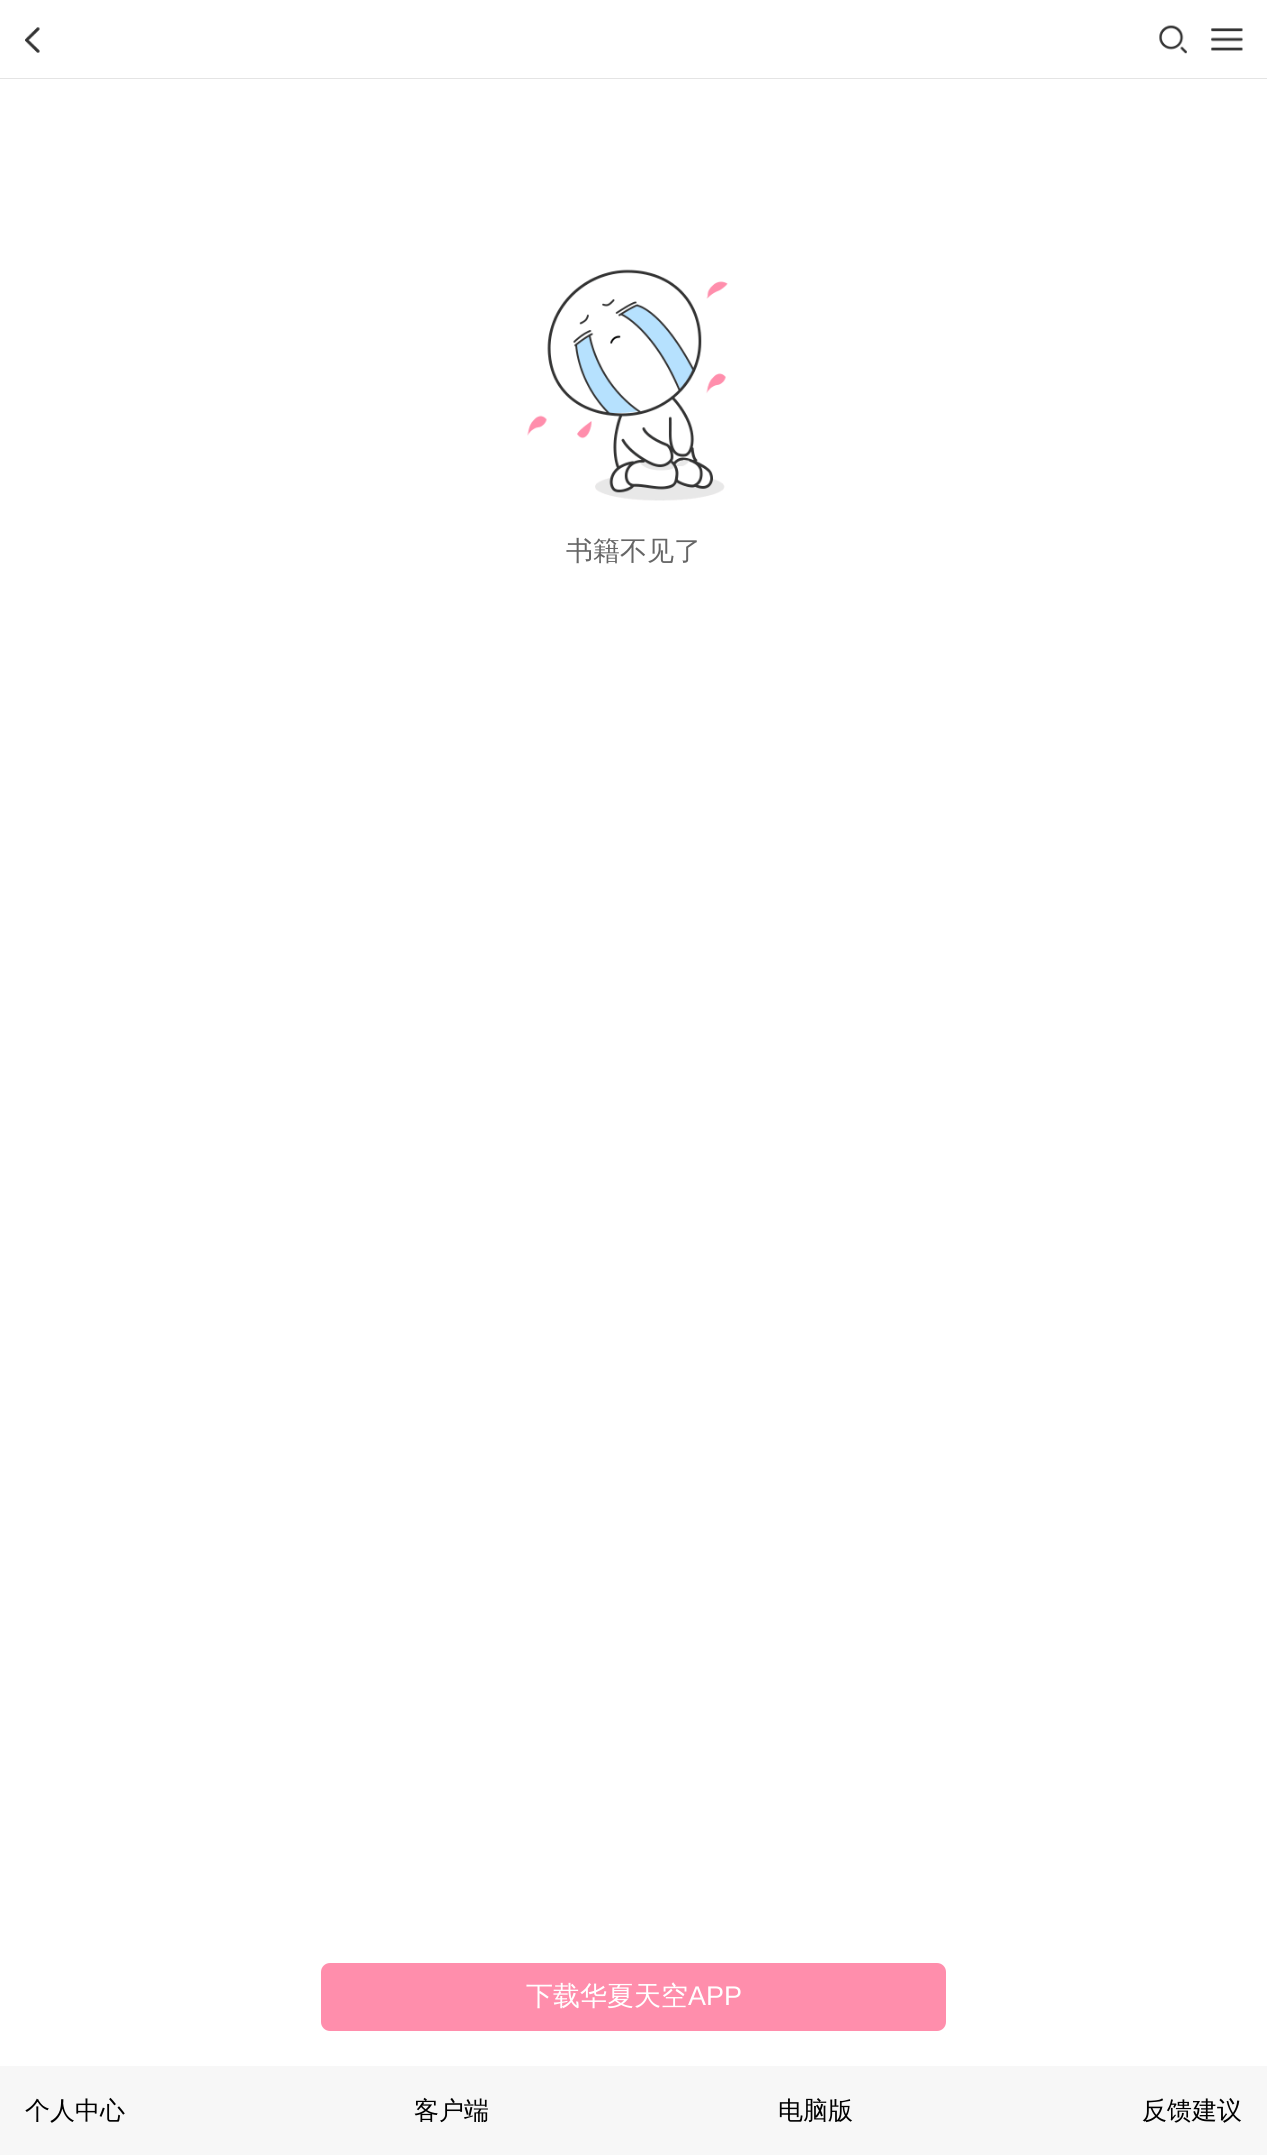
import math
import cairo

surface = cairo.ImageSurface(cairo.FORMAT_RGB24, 1267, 2155)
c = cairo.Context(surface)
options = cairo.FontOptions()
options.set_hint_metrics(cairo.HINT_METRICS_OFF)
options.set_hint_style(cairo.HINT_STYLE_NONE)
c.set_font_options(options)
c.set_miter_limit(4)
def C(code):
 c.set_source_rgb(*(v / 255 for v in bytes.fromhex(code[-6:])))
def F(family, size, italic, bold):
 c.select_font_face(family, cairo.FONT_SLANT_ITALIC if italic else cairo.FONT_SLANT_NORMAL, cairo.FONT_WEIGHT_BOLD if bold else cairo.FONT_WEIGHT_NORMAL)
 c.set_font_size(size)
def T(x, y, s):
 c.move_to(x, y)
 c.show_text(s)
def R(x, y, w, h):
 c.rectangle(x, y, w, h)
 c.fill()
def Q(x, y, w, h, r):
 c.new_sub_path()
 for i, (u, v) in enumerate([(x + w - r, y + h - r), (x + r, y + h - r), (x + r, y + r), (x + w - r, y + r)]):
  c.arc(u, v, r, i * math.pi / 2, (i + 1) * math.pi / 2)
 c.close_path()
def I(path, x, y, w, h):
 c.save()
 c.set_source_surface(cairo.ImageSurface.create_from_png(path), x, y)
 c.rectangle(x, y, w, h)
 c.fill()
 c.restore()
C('ffffff')
c.paint()
C('e4e4e4')
R(0,78,1267,1)
I('1.png',25,27,15,26)
I('2.png',1159,25,28,29)
I('3.png',1211,28,32,23)
I('4.png',527,269,201,232)
F('WenQuanYi Zen Hei Medium',27,0,0)
C('666666')
T(566,560,'书籍不见了')
C('ff8eac')
Q(321,1963,625,68,9)
c.fill()
C('ffffff')
T(526,2005,'下载华夏天空')
F('Liberation Sans',27,0,0)
T(688,2005,'APP')
C('f7f7f7')
R(0,2066,1267,89)
F('WenQuanYi Zen Hei Medium',25,0,0)
C('000000')
T(25,2119,'个人中心')
T(414,2119,'客户端')
T(778,2119,'电脑版')
T(1142,2119,'反馈建议')
surface.write_to_png('o.png')
